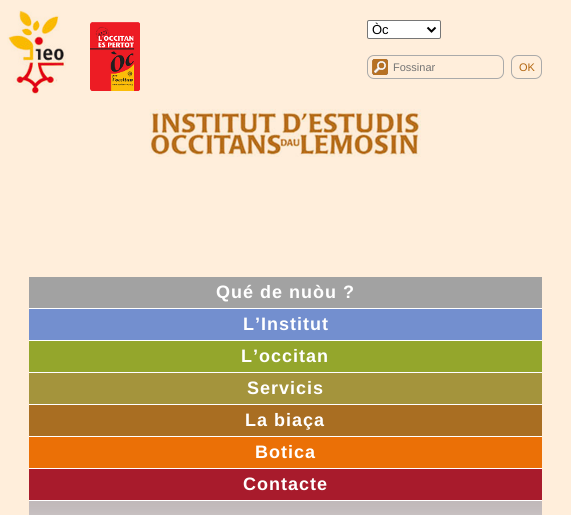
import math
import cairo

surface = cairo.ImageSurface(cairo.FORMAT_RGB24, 571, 515)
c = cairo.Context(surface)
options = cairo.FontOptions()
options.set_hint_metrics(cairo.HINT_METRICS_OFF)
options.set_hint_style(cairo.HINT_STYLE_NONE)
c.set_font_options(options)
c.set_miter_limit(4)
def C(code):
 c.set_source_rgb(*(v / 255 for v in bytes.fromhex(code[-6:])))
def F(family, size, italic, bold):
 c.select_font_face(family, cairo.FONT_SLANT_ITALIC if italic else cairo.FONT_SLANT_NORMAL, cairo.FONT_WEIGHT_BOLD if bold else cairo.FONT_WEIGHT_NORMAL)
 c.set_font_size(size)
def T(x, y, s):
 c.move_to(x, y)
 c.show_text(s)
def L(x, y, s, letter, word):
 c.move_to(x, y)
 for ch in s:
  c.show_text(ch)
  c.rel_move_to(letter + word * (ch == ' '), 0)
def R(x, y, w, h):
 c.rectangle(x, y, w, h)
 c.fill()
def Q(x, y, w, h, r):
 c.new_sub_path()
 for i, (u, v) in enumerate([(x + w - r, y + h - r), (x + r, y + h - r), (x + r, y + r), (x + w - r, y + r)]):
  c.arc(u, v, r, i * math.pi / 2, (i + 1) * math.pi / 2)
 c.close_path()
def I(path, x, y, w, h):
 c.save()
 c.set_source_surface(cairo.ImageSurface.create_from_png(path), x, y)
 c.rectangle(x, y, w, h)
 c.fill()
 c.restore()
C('ffeedb')
c.paint()
I('1.png',7,10,59,85)
I('2.png',90,22,50,69)
C('ffffff')
Q(367.5,20.5,73,18,1.5)
c.fill_preserve()
C('767676')
c.set_line_width(1)
c.stroke()
c.new_path()
c.move_to(427.5,27.5)
c.line_to(431.5,31.5)
c.line_to(435.5,27.5)
C('000000')
c.set_line_width(2)
c.stroke()
F('Liberation Sans',13,0,0)
T(372,34,'Òc')
I('3.png',372,59,16,16)
Q(367.5,55.5,136,23,6.5)
C('aaaaaa')
c.set_line_width(1)
c.stroke()
F('Liberation Sans',11,0,0)
C('757575')
T(393,71,'Fossinar')
Q(511.5,55.5,30,23,6.5)
C('aaaaaa')
c.stroke()
C('b36711')
T(519,71,'OK')
I('4.png',149,109,272,48)
C('a2a2a2')
R(29,277,513,31)
C('ffffff')
R(29,308,513,1)
F('Liberation Sans',18,0,1)
L(216,298,'Qué de nuòu ?',1,0)
C('738fcf')
R(29,309,513,31)
C('ffffff')
R(29,340,513,1)
L(243,330,'L’Institut',1,0)
C('94a62c')
R(29,341,513,31)
C('ffffff')
R(29,372,513,1)
L(241,362,'L’occitan',1,0)
C('a4943c')
R(29,373,513,31)
C('ffffff')
R(29,404,513,1)
L(247,394,'Servicis',1,0)
C('a96e22')
R(29,405,513,31)
C('ffffff')
R(29,436,513,1)
L(245,426,'La biaça',1,0)
C('eb7006')
R(29,437,513,31)
C('ffffff')
R(29,468,513,1)
L(255,458,'Botica',1,0)
C('a81b2c')
R(29,469,513,31)
C('ffffff')
R(29,500,513,1)
L(243,490,'Contacte',1,0)
I('5.png',29,501,513,14)
surface.write_to_png('o.png')
